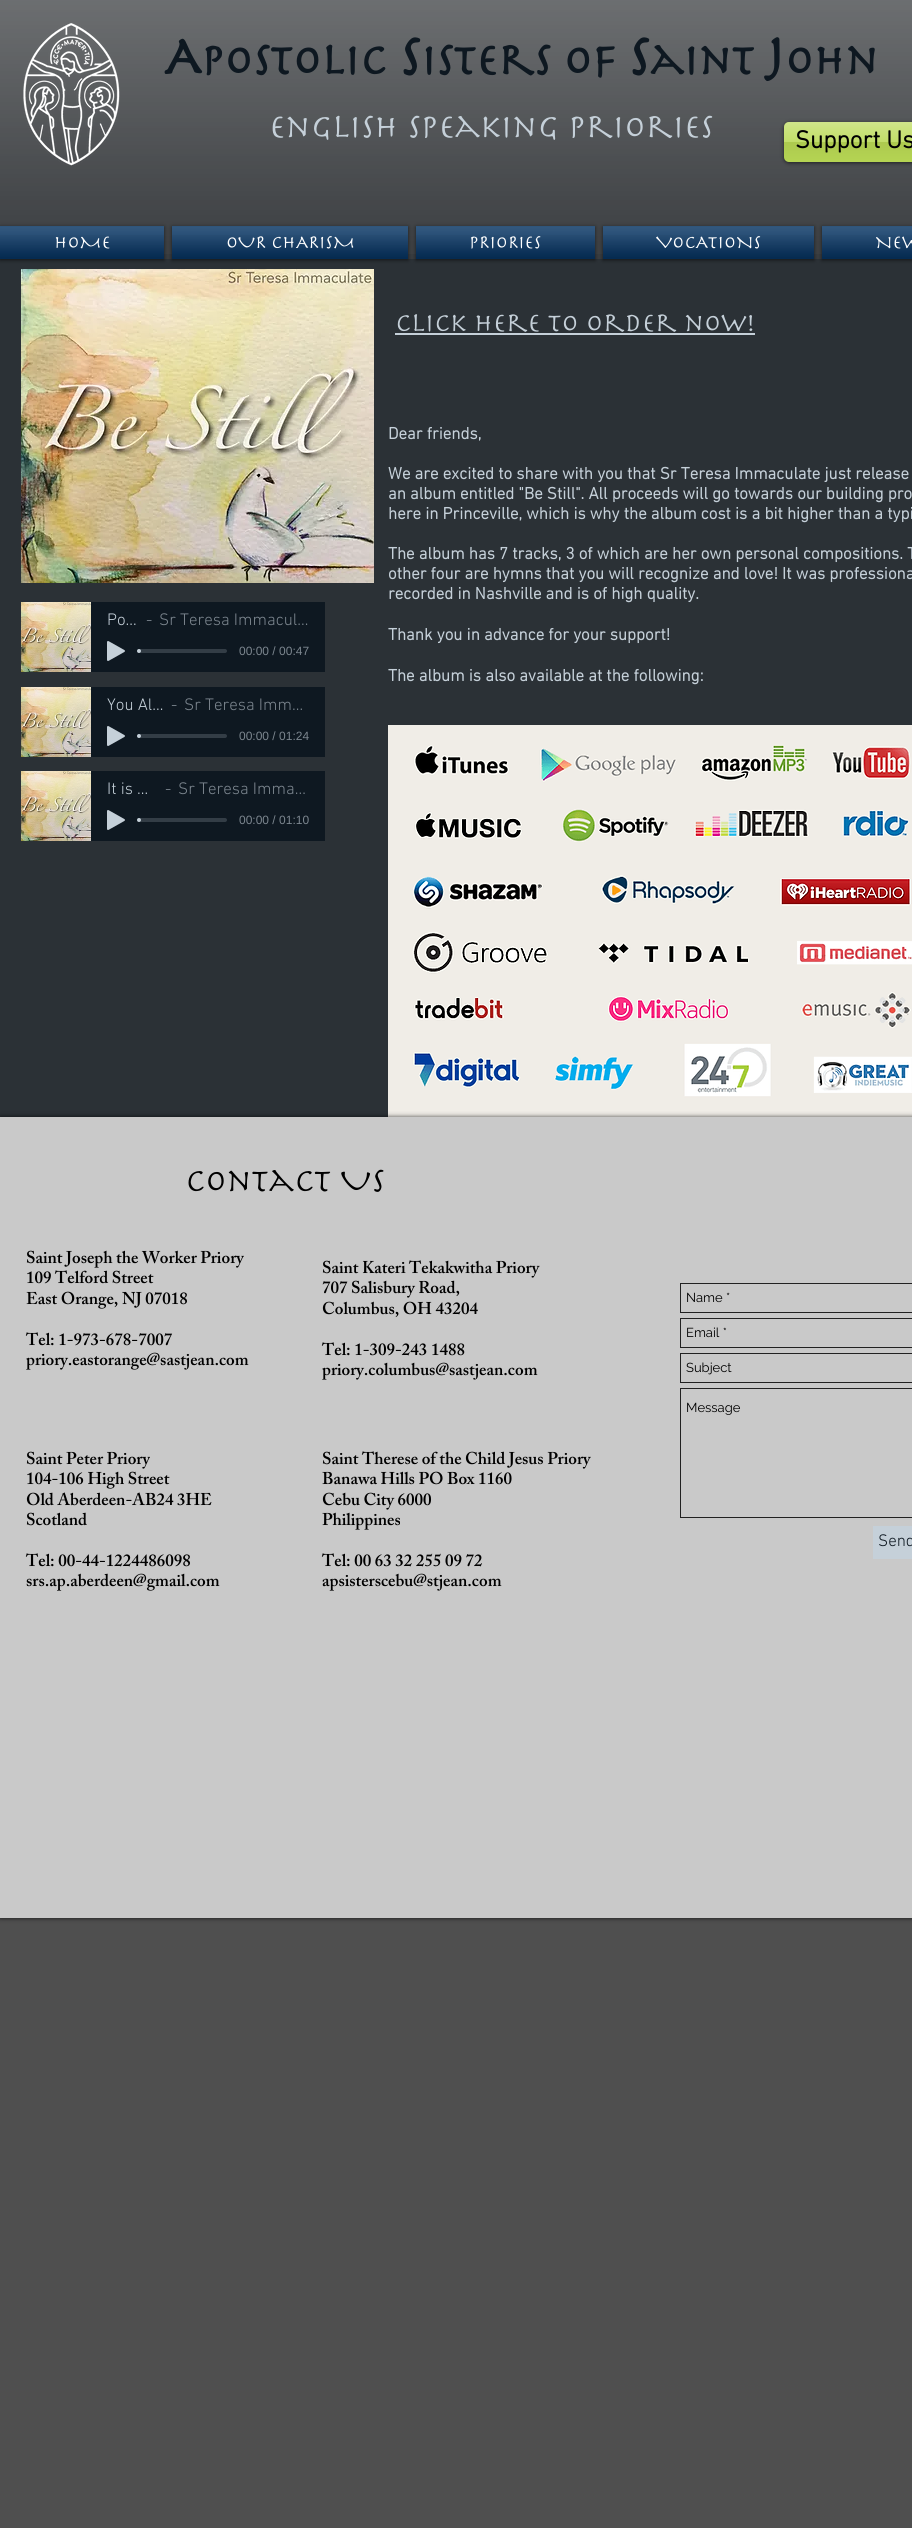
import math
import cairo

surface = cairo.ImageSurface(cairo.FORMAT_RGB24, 912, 2528)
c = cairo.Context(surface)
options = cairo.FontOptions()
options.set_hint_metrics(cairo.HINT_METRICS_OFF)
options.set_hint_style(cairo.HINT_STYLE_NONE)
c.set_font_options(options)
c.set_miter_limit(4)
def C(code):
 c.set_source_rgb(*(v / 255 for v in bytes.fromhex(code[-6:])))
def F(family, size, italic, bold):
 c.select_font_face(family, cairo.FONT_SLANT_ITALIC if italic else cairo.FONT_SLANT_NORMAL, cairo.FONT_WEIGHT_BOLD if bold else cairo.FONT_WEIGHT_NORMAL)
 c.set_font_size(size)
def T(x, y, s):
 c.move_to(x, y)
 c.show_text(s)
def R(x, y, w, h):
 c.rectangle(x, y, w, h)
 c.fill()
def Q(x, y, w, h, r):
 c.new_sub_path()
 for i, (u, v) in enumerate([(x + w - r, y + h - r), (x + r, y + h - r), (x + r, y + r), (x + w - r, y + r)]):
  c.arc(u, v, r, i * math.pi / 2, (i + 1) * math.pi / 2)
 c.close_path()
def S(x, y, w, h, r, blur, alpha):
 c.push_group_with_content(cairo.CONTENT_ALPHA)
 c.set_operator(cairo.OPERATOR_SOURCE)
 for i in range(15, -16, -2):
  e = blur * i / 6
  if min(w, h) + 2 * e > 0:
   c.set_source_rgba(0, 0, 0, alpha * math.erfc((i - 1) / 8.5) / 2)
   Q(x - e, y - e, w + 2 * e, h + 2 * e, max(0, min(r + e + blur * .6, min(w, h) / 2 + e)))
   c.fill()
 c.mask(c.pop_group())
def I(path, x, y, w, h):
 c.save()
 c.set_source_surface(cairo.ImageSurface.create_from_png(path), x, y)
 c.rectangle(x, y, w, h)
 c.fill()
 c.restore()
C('4f4f4f')
c.paint()
C('393c3f')
R(0,0,912,259)
I('1.png',0,0,912,254)
I('2.png',23,23,97,143)
F('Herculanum',56,0,1)
C('0e1821')
T(164,74,'A')
F('Herculanum',45,0,1)
T(201,74,'postolic')
F('Herculanum',56,0,1)
T(399,74,'S')
F('Herculanum',45,0,1)
T(421,74,'isters of')
F('Herculanum',56,0,1)
T(628,74,'S')
F('Herculanum',45,0,1)
T(650,74,'aint')
F('Herculanum',56,0,1)
T(766,74,'J')
F('Herculanum',45,0,1)
T(785,74,'ohn')
F('Herculanum',34,0,0)
C('c5d0d9')
T(269,137,'English Speaking Priories')
C('000000')
S(784,123,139,40,5,2,.6)
C('bada55')
Q(784,122,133,40,5)
c.fill()
I('3.png',784,122,128,40)
F('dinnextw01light',25,0,1)
C('000000')
T(795,148,'Support Us')
C('2b3136')
R(0,259,912,858)
C('000000')
S(0,227,164,33,0,2,.6)
C('002e5d')
R(0,226,164,33)
I('4.png',0,226,164,33)
I('5.png',0,235,164,24)
F('Herculanum',19,0,0)
C('ffffff')
T(54,248,'HOME')
C('000000')
S(172,227,236,33,0,2,.6)
C('002e5d')
R(172,226,236,33)
I('6.png',172,226,236,33)
I('7.png',172,235,236,24)
C('ffffff')
T(226,248,'OUR CHARISM')
C('000000')
S(416,227,179,33,0,2,.6)
C('002e5d')
R(416,226,179,33)
I('8.png',416,226,179,33)
I('9.png',416,235,179,24)
C('ffffff')
T(469,248,'PRIORIES')
C('000000')
S(603,227,211,33,0,2,.6)
C('002e5d')
R(603,226,211,33)
I('10.png',603,226,211,33)
I('11.png',603,235,211,24)
C('ffffff')
T(656,248,'VOCATIONS')
C('000000')
S(822,227,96,33,0,2,.6)
C('002e5d')
R(822,226,90,33)
I('12.png',822,226,90,33)
I('13.png',822,235,90,24)
C('ffffff')
T(875,248,'NEW')
I('14.png',21,269,353,314)
F('Herculanum',27,0,0)
C('c5d0d9')
T(395,331,'Click Here to order now!')
R(395,333,360,2)
C('0e1821')
R(91,602,234,70)
I('15.png',21,602,70,70)
F('dinnextw01light Light',17,0,0)
C('c5d0d9')
T(107,625,'Po…')
C('7c868f')
T(146,625,'-')
T(159,625,'Sr Teresa Immacul…')
I('16.png',107,641,18,20)
C('333d46')
Q(139,649,88,4,2)
c.fill()
C('c5d0d9')
c.arc(139,651,2,0,2 * math.pi)
c.fill()
F('Liberation Sans',12,0,0)
C('7c868f')
T(239,655,'00:00 / 00:47')
F('dinnextw01light',17,0,1)
C('c5d0d9')
T(388,439,'Dear friends,')
T(388,479,'We are excited to share with you that Sr Teresa Immaculate just release')
T(388,499,'an album entitled "Be Still". All proceeds will go towards our building pro')
T(388,519,'here in Princeville, which is why the album cost is a bit higher than a typi')
T(388,559,'The album has 7 tracks, 3 of which are her own personal compositions. T')
T(388,579,'other four are hymns that you will recognize and love! It was professiona')
T(388,599,'recorded in Nashville and is of high quality.')
T(388,640,'Thank you in advance for your support!')
T(388,681,'The album is also available at the following:')
C('0e1821')
R(91,687,234,70)
I('15.png',21,687,70,70)
F('dinnextw01light Light',17,0,0)
C('c5d0d9')
T(107,710,'You Al…')
C('7c868f')
T(171,710,'-')
T(184,710,'Sr Teresa Imm…')
I('16.png',107,726,18,20)
C('333d46')
Q(139,734,88,4,2)
c.fill()
C('c5d0d9')
c.arc(139,736,2,0,2 * math.pi)
c.fill()
F('Liberation Sans',12,0,0)
C('7c868f')
T(239,740,'00:00 / 01:24')
C('0e1821')
R(91,771,234,70)
I('15.png',21,771,70,70)
F('dinnextw01light Light',17,0,0)
C('c5d0d9')
T(107,794,'It is …')
C('7c868f')
T(165,794,'-')
T(178,794,'Sr Teresa Imma…')
I('16.png',107,810,18,20)
C('333d46')
Q(139,818,88,4,2)
c.fill()
C('c5d0d9')
c.arc(139,820,2,0,2 * math.pi)
c.fill()
F('Liberation Sans',12,0,0)
C('7c868f')
T(239,824,'00:00 / 01:10')
I('17.png',388,725,524,392)
C('000000')
S(0,1117,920,801,0,2.5,.7)
C('c9c9c9')
R(0,1117,912,801)
F('Herculanum',34,0,0)
C('000000')
T(185,1191,'Contact Us')
F('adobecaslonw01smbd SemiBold',17,0,0)
T(26,1263,'Saint Joseph the Worker Priory')
T(26,1283,'109 Telford Street')
T(26,1304,'East Orange, NJ 07018')
T(26,1345,'Tel: 1-973-678-7007')
T(26,1365,'priory.eastorange@sastjean.com')
T(322,1273,'Saint Kateri Tekakwitha Priory')
T(322,1293,'707 Salisbury Road,')
T(322,1314,'Columbus, OH 43204')
T(322,1355,'Tel: 1-309-243 1488')
T(322,1375,'priory.columbus@sastjean.com')
c.rectangle(680.5,1283.5,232,29)
C('212121')
c.set_line_width(1)
c.stroke()
F('Raleway',13,0,0)
C('000000')
T(686,1302,'Name *')
c.rectangle(680.5,1318.5,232,29)
C('212121')
c.stroke()
C('000000')
T(686,1337,'Email *')
c.rectangle(680.5,1353.5,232,29)
C('212121')
c.stroke()
C('000000')
T(686,1372,'Subject')
c.rectangle(680.5,1388.5,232,129)
C('212121')
c.stroke()
C('000000')
T(686,1412,'Message')
C('c5d0d9')
R(873,1526,39,33)
F('dinnextw01light Light',17,0,0)
C('0e1821')
T(878,1546,'Send')
F('adobecaslonw01smbd SemiBold',17,0,0)
C('000000')
T(26,1464,'Saint Peter Priory')
T(26,1484,'104-106 High Street')
T(26,1505,'Old Aberdeen-AB24 3HE')
T(26,1525,'Scotland')
T(26,1566,'Tel: 00-44-1224486098')
T(26,1586,'srs.ap.aberdeen@gmail.com')
T(322,1464,'Saint Therese of the Child Jesus Priory')
T(322,1484,'Banawa Hills PO Box 1160')
T(322,1505,'Cebu City 6000')
T(322,1525,'Philippines')
T(322,1566,'Tel: 00 63 32 255 09 72')
T(322,1586,'apsisterscebu@stjean.com')
surface.write_to_png('o.png')
